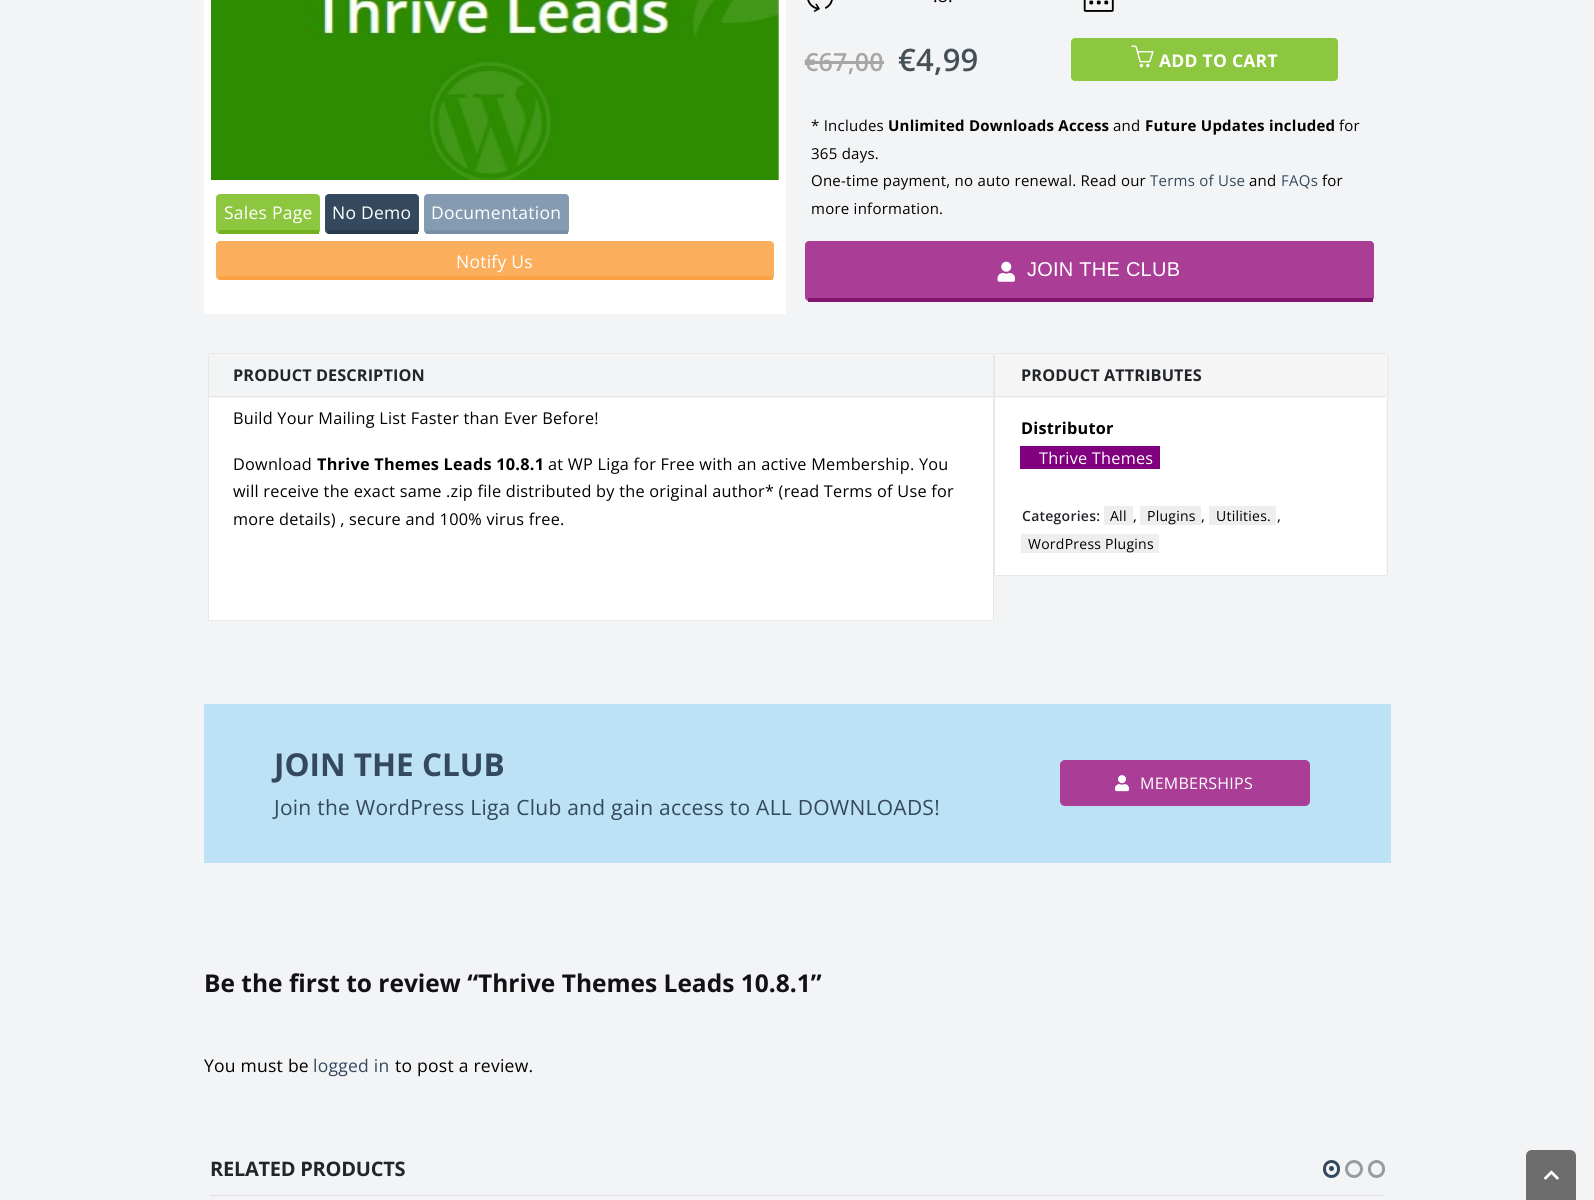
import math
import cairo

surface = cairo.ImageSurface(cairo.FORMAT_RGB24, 1594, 1200)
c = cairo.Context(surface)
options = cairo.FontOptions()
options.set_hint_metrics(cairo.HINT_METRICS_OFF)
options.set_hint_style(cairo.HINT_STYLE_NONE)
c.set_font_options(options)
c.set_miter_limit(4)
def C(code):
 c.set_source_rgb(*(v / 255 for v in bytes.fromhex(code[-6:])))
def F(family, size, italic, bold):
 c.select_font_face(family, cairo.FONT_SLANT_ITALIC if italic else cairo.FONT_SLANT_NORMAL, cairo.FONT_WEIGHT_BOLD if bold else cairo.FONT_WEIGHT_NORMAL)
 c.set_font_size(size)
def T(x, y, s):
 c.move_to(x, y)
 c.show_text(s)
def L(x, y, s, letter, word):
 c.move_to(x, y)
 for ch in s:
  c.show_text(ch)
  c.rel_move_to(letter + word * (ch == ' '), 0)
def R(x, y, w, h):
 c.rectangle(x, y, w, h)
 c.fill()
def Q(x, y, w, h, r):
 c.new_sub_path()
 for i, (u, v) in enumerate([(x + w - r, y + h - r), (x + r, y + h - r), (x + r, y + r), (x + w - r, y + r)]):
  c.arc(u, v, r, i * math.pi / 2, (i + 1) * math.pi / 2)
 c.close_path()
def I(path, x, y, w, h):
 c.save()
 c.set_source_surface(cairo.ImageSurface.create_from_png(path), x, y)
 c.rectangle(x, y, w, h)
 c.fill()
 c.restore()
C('f3f4f6')
c.paint()
C('ffffff')
R(204,0,582,314)
I('1.png',211,0,568,180)
C('8dc63f')
Q(216,194,104,40,4)
c.fill()
F('Open Sans',17.5,0,0)
C('ffffff')
L(224,219,'Sales Page',.25,0)
C('73b11f')
R(219,230,100,4)
C('34495e')
Q(325,194,94,40,4)
c.fill()
C('ffffff')
L(332,219,'No Demo',.25,0)
C('293c4f')
R(328,230,90,4)
C('859bb1')
Q(424,194,145,40,4)
c.fill()
C('ffffff')
L(431,219,'Documentation',.25,0)
C('7a90a7')
R(426,230,142,4)
C('fbaf5d')
Q(216,241,558,39,4)
c.fill()
C('faa244')
R(219,276,554,4)
C('ffffff')
L(456,268,'Notify Us',.25,0)
I('2.png',807,0,26,12)
C('000000')
L(933,2,'.8.',.25,0)
I('3.png',1083,0,31,12)
F('Open Sans SemiBold',25,0,0)
C('a7a7a7')
L(804,71,'€67,00',.25,0)
R(805,61,79,3)
F('Open Sans SemiBold',31,0,0)
C('465157')
L(898,71,'€4,99',.25,0)
C('8dc63f')
Q(1071,38,267,43,4)
c.fill()
I('4.png',1131,45,23,23)
F('Open Sans',17.5,0,1)
C('ffffff')
L(1159,67,'ADD TO CART',.25,0)
F('Open Sans',15,0,0)
C('000000')
L(811,131,'* Includes',.25,0)
F('Open Sans',15,0,1)
L(888,131,'Unlimited Downloads Access',.25,0)
F('Open Sans',15,0,0)
L(1113,131,'and',.25,0)
F('Open Sans',15,0,1)
L(1145,131,'Future Updates included',.25,0)
F('Open Sans',15,0,0)
L(1339,131,'for',.25,0)
L(811,159,'365 days.',.25,0)
L(811,186,'One-time payment, no auto renewal. Read our',.25,0)
C('34495d')
L(1150,186,'Terms of Use',.25,0)
C('000000')
L(1249,186,'and',.25,0)
C('34495d')
L(1281,186,'FAQs',.25,0)
C('000000')
L(1322,186,'for',.25,0)
L(811,214,'more information.',.25,0)
C('aa3e97')
Q(805,241,569,60,4)
c.fill()
C('82166f')
R(808,298,565,4)
I('5.png',997,261,18,21)
F('Liberation Sans',20,0,0)
C('ffffff')
L(1027,276,'JOIN THE CLUB',.25,0)
Q(208.5,353.5,785,267,2)
C('e7e7e7')
c.set_line_width(1)
c.stroke()
C('f5f5f5')
R(209,354,784,1)
C('e7e7e7')
R(209,396,784,1)
F('Open Sans',16.25,0,1)
C('222529')
L(233,381,'PRODUCT DESCRIPTION',.1,0)
C('ffffff')
R(209,398,784,222)
F('Open Sans',16.25,0,0)
C('000000')
L(233,424,'Build Your Mailing List Faster than Ever Before!',.25,0)
L(233,470,'Download',.25,0)
F('Open Sans',16.25,0,1)
L(317,470,'Thrive Themes Leads 10.8.1',.25,0)
F('Open Sans',16.25,0,0)
L(548,470,'at WP Liga for Free with an active Membership. You',.25,0)
L(233,497,'will receive the exact same .zip file distributed by the original author* (read Terms of Use for',.25,0)
L(233,525,'more details) , secure and 100% virus free.',.25,0)
C('fbfbfb')
Q(994.5,353.5,393,222,2)
c.fill_preserve()
C('e7e7e7')
c.stroke()
C('f5f5f5')
R(995,354,391,44)
C('e7e7e7')
R(995,396,391,1)
F('Open Sans',16.25,0,1)
C('222529')
L(1021,381,'PRODUCT ATTRIBUTES',.1,0)
C('ffffff')
R(995,398,391,177)
C('000000')
L(1021,434,'Distributor',.25,0)
C('800080')
R(1020,446,140,23)
F('Open Sans',16.25,0,0)
C('ffffff')
L(1039,464,'Thrive Themes',.25,0)
F('Open Sans SemiBold',14,0,0)
C('222529')
L(1022,521,'Categories:',.25,0)
C('eeeeee')
R(1104,506,29,19)
F('Open Sans',14,0,0)
C('000000')
L(1110,521,'All',.25,0)
F('Open Sans SemiBold',14,0,0)
C('222529')
L(1133,521,',',.25,0)
C('eeeeee')
R(1140,506,61,19)
F('Open Sans',14,0,0)
C('000000')
L(1147,521,'Plugins',.25,0)
F('Open Sans SemiBold',14,0,0)
C('222529')
L(1201,521,',',.25,0)
C('eeeeee')
R(1209,506,67,19)
F('Open Sans',14,0,0)
C('000000')
L(1216,521,'Utilities.',.25,0)
F('Open Sans SemiBold',14,0,0)
C('222529')
L(1277,521,',',.25,0)
C('eeeeee')
R(1021,534,138,19)
F('Open Sans',14,0,0)
C('000000')
L(1028,549,'WordPress Plugins',.25,0)
C('bde1f5')
R(204,704,1187,159)
F('Open Sans',31.5,0,1)
C('34495d')
T(274,776,'JOIN THE CLUB')
F('Open Sans',21,0,0)
L(274,815,'Join the WordPress Liga Club and gain access to ALL DOWNLOADS!',.25,0)
C('aa3e97')
Q(1060.5,760.5,249,45,4.5)
c.fill_preserve()
c.stroke()
I('6.png',1115,775,14,17)
F('Open Sans',16,0,0)
C('ffffff')
L(1140,789,'MEMBERSHIPS',.25,0)
F('Open Sans',24.5,0,1)
C('121214')
T(204,992,'Be the first to review “Thrive Themes Leads 10.8.1”')
F('Open Sans',17.5,0,0)
C('000000')
L(204,1072,'You must be',.25,0)
C('34495d')
L(313,1072,'logged in',.25,0)
C('000000')
L(395,1072,'to post a review.',.25,0)
C('e0e0e2')
R(210,1195,1175,1)
F('Open Sans',20,0,1)
C('222529')
L(210,1176,'RELATED PRODUCTS',-.25,0)
Q(1324.5,1161.5,14,15,7)
C('34495d')
c.set_line_width(3)
c.stroke()
c.arc(1331.5,1168.5,2.5,0,2 * math.pi)
c.fill()
c.arc(1354,1169,7.5,0,2 * math.pi)
C('989b9f')
c.stroke()
Q(1369.5,1161.5,14,15,7)
c.stroke()
C('6d6d6e')
c.new_path()
c.move_to(1532,1150)
c.line_to(1570,1150)
c.curve_to(1573.5,1150,1576,1152.5,1576,1156)
c.line_to(1576,1200)
c.line_to(1526,1200)
c.line_to(1526,1156)
c.curve_to(1526,1152.5,1528.5,1150,1532,1150)
c.close_path()
c.fill()
I('7.png',1544,1170,15,10)
surface.write_to_png('o.png')
